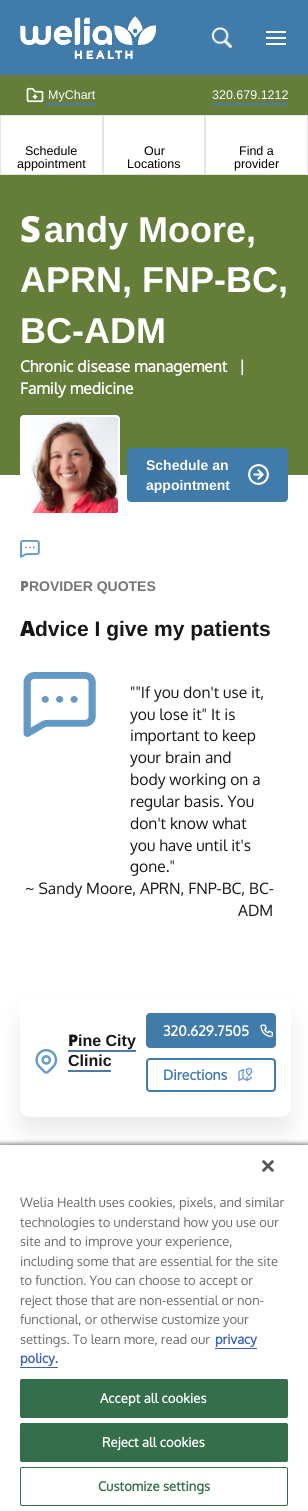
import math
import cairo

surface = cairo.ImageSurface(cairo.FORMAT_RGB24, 308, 1511)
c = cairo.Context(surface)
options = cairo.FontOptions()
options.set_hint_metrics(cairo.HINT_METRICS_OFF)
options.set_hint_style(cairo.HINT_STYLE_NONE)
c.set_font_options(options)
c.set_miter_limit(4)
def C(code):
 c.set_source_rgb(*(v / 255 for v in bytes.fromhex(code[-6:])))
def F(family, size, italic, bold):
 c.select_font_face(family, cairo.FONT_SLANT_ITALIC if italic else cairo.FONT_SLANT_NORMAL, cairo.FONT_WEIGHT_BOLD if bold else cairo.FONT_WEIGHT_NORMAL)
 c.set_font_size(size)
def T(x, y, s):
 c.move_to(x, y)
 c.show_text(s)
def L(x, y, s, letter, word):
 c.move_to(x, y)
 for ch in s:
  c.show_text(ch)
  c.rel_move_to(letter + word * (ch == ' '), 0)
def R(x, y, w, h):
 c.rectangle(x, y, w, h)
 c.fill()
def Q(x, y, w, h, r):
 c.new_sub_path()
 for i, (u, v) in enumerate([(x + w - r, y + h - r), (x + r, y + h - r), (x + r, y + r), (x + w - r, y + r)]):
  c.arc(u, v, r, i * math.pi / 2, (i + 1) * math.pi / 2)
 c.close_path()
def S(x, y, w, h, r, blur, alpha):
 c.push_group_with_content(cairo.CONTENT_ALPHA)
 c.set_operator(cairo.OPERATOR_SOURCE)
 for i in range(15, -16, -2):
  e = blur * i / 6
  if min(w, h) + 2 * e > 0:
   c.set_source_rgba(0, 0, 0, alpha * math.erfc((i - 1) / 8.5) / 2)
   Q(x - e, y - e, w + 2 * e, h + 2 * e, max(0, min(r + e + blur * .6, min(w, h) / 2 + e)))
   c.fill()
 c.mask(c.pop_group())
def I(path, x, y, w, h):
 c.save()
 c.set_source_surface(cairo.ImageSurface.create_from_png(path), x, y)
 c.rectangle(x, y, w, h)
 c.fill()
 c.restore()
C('ffffff')
c.paint()
C('417baa')
R(0,0,308,75)
I('1.png',20,16,136,43)
I('2.png',211,27,22,22)
I('3.png',266,31,20,14)
C('647e3a')
R(0,75,308,40)
I('4.png',26,87,18,16)
F('Liberation Sans',12.5,0,0)
C('ffffff')
T(48,99,'MyChart')
C('4f7aa6')
R(45,103,51,2)
C('ffffff')
T(212,99,'320.679.1212')
C('4f7aa6')
R(212,103,76,2)
c.rectangle(.5,115.5,102,59)
C('e5e5e5')
c.set_line_width(1)
c.stroke()
C('000000')
T(25,155,'Schedule')
T(17,168,'appointment')
c.rectangle(103.5,115.5,101,59)
C('e5e5e5')
c.stroke()
C('000000')
T(144,155,'Our')
T(127,168,'Locations')
c.rectangle(205.5,115.5,102,59)
C('e5e5e5')
c.stroke()
C('000000')
T(239,155,'Find a')
T(234,168,'provider')
C('647e3a')
R(0,175,308,300)
F('Noto Sans Black',36,0,0)
C('ffffff')
T(20,242,'S')
F('Liberation Sans',36,0,1)
T(44,242,'andy Moore,')
T(20,292,'APRN, FNP-BC,')
T(20,343,'BC-ADM')
F('Oxygen',15.6,0,1)
T(20,372,'Chronic disease management')
T(239,372,'|')
T(20,394,'Family medicine')
Q(21,416,98,98,3)
c.fill_preserve()
c.set_line_width(2)
c.stroke()
I('5.png',23,417,95,96)
C('417baa')
Q(128,449,159,52,3)
c.fill_preserve()
c.stroke()
F('Liberation Sans',14,0,1)
C('ffffff')
T(146,470,'Schedule an')
I('6.png',248,464,21,21)
T(146,490,'appointment')
I('7.png',20,540,20,18)
F('Noto Sans Black',14,0,0)
C('757575')
T(20,591,'P')
F('Liberation Sans',14,0,1)
T(29,591,'ROVIDER QUOTES')
F('Noto Sans Black',21,0,0)
C('171717')
T(20,636,'A')
F('Liberation Sans',21,0,1)
T(35,636,'dvice I give my patients')
I('8.png',23,672,73,65)
F('Oxygen',15.6,0,0)
T(130,698,'""If you don\'t use it,')
T(130,720,'you lose it" It is')
T(130,741,'important to keep')
T(130,763,'your brain and')
T(130,785,'body working on a')
T(130,807,'regular basis. You')
T(130,829,'don\'t know what')
T(130,851,'you have until it\'s')
T(130,872,'gone."')
T(25,894,'~ Sandy Moore, APRN, FNP-BC, BC-')
T(238,916,'ADM')
C('303133')
S(20,1014,271,119,10,12,.1)
C('ffffff')
Q(20,998,271,119,10)
c.fill()
I('9.png',35,1049,23,25)
F('Noto Sans Black',16,0,0)
C('171717')
T(68,1046,'P')
C('4f7aa6')
R(68,1050,68,2)
F('Liberation Sans',16,0,1)
C('171717')
T(78,1046,'ine City')
T(68,1066,'Clinic')
C('4f7aa6')
R(68,1070,43,2)
C('417baa')
Q(147,1014,128,33,3)
c.fill_preserve()
c.stroke()
F('Oxygen',14,0,1)
C('ffffff')
T(163,1036,'320.629.7505')
I('10.png',260,1024,13,14)
Q(147,1059,128,32,3)
C('417baa')
c.stroke()
T(163,1080,'Directions')
I('11.png',238,1067,15,14)
C('000000')
S(0,1143,308,368,0,2,.35)
S(0,1145,308,366,0,2,.2)
C('ffffff')
R(0,1145,308,366)
I('12.png',262,1160,12,12)
F('Oxygen',13,0,0)
C('696969')
T(20,1207,'Welia Health uses cookies, pixels, and similar')
T(20,1227,'technologies to understand how you use our')
T(20,1246,'site and to improve your experience,')
T(20,1266,'including some that are essential for the site')
T(20,1285,'to function. You can choose to accept or')
T(20,1305,'reject those that are non-essential or non-')
T(20,1324,'functional, or otherwise customize your')
T(20,1344,'settings. To learn more, read our')
F('Oxygen',13,0,1)
C('3860be')
T(215,1344,'privacy')
R(215,1348,42,1)
T(20,1363,'policy.')
R(20,1367,38,1)
C('346e4a')
Q(20.5,1379.5,267,38,1.5)
c.fill_preserve()
c.set_line_width(1)
c.stroke()
C('ffffff')
L(100,1403,'Accept all cookies',.1,0)
C('346e4a')
Q(20.5,1423.5,267,38,1.5)
c.fill_preserve()
c.stroke()
C('ffffff')
L(102,1447,'Reject all cookies',.1,0)
Q(20.5,1467.5,267,38,1.5)
C('346e4a')
c.stroke()
L(98,1491,'Customize settings',.1,0)
surface.write_to_png('o.png')
